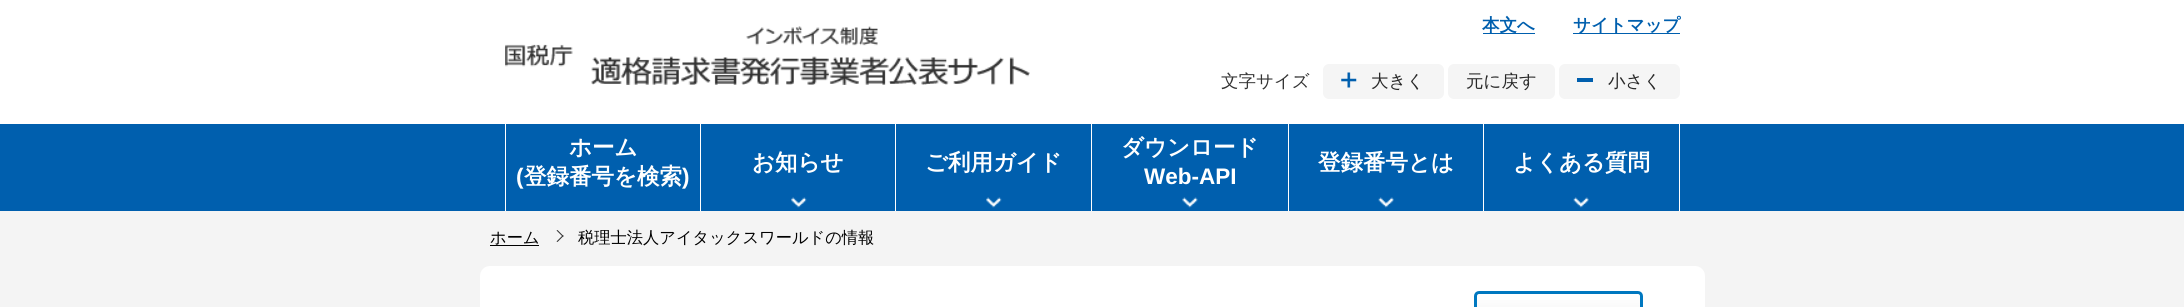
import math
import cairo

surface = cairo.ImageSurface(cairo.FORMAT_RGB24, 2184, 307)
c = cairo.Context(surface)
options = cairo.FontOptions()
options.set_hint_metrics(cairo.HINT_METRICS_OFF)
options.set_hint_style(cairo.HINT_STYLE_NONE)
c.set_font_options(options)
c.set_miter_limit(4)
def C(code):
 c.set_source_rgb(*(v / 255 for v in bytes.fromhex(code[-6:])))
def F(family, size, italic, bold):
 c.select_font_face(family, cairo.FONT_SLANT_ITALIC if italic else cairo.FONT_SLANT_NORMAL, cairo.FONT_WEIGHT_BOLD if bold else cairo.FONT_WEIGHT_NORMAL)
 c.set_font_size(size)
def T(x, y, s):
 c.move_to(x, y)
 c.show_text(s)
def R(x, y, w, h):
 c.rectangle(x, y, w, h)
 c.fill()
def Q(x, y, w, h, r):
 c.new_sub_path()
 for i, (u, v) in enumerate([(x + w - r, y + h - r), (x + r, y + h - r), (x + r, y + r), (x + w - r, y + r)]):
  c.arc(u, v, r, i * math.pi / 2, (i + 1) * math.pi / 2)
 c.close_path()
def I(path, x, y, w, h):
 c.save()
 c.set_source_surface(cairo.ImageSurface.create_from_png(path), x, y)
 c.rectangle(x, y, w, h)
 c.fill()
 c.restore()
C('ffffff')
c.paint()
I('1.png',505,26,525,59)
C('005fae')
R(1483,33,52,1)
F('WenQuanYi Zen Hei',17.5,0,1)
T(1482,31,'本文へ')
R(1573,33,107,1)
T(1573,31,'サイトマップ')
F('WenQuanYi Zen Hei Medium',17.5,0,0)
C('333333')
T(1221,87,'文字サイズ')
C('f5f5f5')
Q(1323,64,121,35,6)
c.fill()
I('2.png',1341,72,16,16)
C('282828')
T(1371,87,'大きく')
C('f5f5f5')
Q(1448,64,107,35,6)
c.fill()
C('282828')
T(1466,87,'元に戻す')
C('f5f5f5')
Q(1559,64,121,35,6)
c.fill()
C('005fae')
R(1577,78,16,4)
C('282828')
T(1608,87,'小さく')
C('005fae')
R(0,124,2184,87)
C('ffffff')
R(700,124,1,87)
R(505,124,1,87)
F('WenQuanYi Zen Hei',22.5,0,1)
T(569,155,'ホーム')
F('Liberation Sans',22.5,0,1)
T(516,184,'(')
F('WenQuanYi Zen Hei',22.5,0,1)
T(524,184,'登録番号を検索')
F('Liberation Sans',22.5,0,1)
T(682,184,')')
R(895,124,1,87)
F('WenQuanYi Zen Hei',22.5,0,1)
T(752,170,'お知らせ')
I('3.png',791,197,16,11)
R(1091,124,1,87)
T(925,170,'ご利用ガイド')
I('3.png',986,197,16,11)
R(1288,124,1,87)
T(1121,155,'ダウンロード')
F('Liberation Sans',22.5,0,1)
T(1144,184,'Web-API')
I('4.png',1182,197,16,11)
R(1483,124,1,87)
F('WenQuanYi Zen Hei',22.5,0,1)
T(1318,170,'登録番号とは')
I('5.png',1378,197,16,11)
R(1679,124,1,87)
T(1513,170,'よくある質問')
I('6.png',1573,197,16,11)
C('f4f4f4')
R(0,211,2184,96)
F('WenQuanYi Zen Hei Medium',16.25,0,0)
C('000000')
T(490,243,'ホーム')
R(490,245,49,1)
C('333333')
c.new_path()
c.move_to(557.5,230)
c.line_to(563.5,236)
c.line_to(563,237)
c.line_to(556.5,230.5)
c.close_path()
c.fill()
c.new_path()
c.move_to(563,235)
c.line_to(563.5,236)
c.line_to(557.5,242)
c.line_to(556.5,241.5)
c.close_path()
c.fill()
C('000000')
T(578,243,'税理士法人アイタックスワールドの情報')
C('ffffff')
Q(480,266,1225,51,10)
c.fill()
gradient = cairo.LinearGradient(1558,294,1558,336)
gradient.add_color_stop_rgba(0,1,1,1,1)
gradient.add_color_stop_rgba(1,0.933,0.933,0.933,1)
c.set_source(gradient)
R(1474,300,169,7)
Q(1475.5,292.5,166,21,3.5)
C('0078c0')
c.set_line_width(3)
c.stroke()
surface.write_to_png('o.png')
